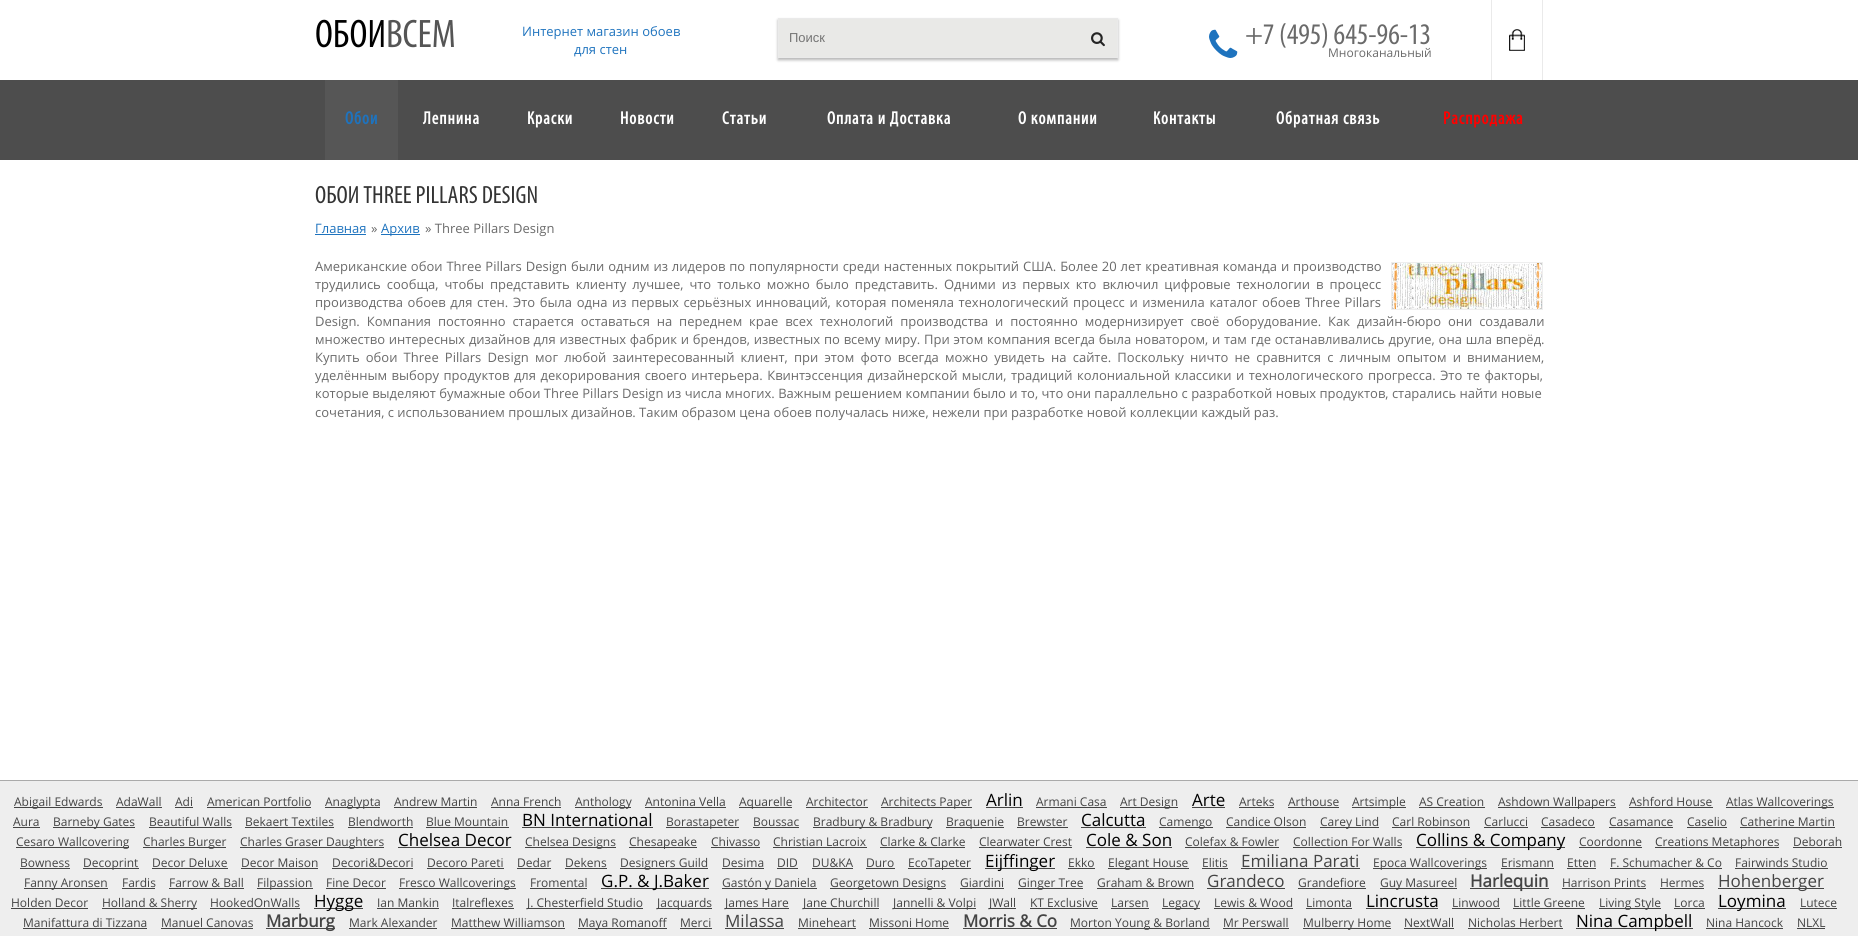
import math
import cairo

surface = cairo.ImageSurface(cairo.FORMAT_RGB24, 1858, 936)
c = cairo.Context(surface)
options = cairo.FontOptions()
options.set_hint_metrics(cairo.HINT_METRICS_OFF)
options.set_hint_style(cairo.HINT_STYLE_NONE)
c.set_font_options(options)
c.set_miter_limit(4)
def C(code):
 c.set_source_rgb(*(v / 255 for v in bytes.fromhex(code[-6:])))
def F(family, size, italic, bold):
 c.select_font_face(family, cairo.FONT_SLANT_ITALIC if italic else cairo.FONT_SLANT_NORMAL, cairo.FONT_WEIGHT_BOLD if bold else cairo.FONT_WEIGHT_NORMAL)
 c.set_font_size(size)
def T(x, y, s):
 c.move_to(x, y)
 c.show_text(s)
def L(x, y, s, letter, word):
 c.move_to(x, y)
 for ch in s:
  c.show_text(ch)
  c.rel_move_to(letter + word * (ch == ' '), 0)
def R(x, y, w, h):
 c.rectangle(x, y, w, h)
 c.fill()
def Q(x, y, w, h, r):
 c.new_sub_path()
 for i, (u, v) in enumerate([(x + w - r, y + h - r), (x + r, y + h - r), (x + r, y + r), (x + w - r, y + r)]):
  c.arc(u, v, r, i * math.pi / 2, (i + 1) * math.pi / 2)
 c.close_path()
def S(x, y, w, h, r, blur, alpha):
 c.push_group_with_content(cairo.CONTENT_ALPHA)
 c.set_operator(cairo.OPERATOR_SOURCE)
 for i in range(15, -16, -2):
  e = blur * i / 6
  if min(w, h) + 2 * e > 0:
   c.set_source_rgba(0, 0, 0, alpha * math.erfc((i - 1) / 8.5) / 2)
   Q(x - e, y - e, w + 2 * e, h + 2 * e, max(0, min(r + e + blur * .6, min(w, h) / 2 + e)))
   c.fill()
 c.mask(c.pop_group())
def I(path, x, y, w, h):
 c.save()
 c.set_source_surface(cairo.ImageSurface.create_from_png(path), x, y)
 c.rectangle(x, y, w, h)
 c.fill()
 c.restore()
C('ffffff')
c.paint()
F('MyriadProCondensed',40,0,0)
C('000000')
T(315,47,'ОБОИ')
C('555555')
T(386,47,'ВСЕМ')
F('Open Sans',13,0,0)
C('1e73be')
T(522,36,'Интернет магазин обоев')
T(574,54,'для стен')
C('000000')
S(778,20,340,40,0,1.5,.3)
C('e9e9e7')
c.rectangle(778.5,18.5,339,39)
c.fill_preserve()
C('eaeaea')
c.set_line_width(1)
c.stroke()
F('Liberation Sans',13,0,0)
C('757575')
T(789,42,'Поиск')
I('1.png',1091,32,14,15)
C('eaeaea')
R(1491,0,1,80)
I('2.png',1209,29,29,29)
F('MyriadProCondensed',30,0,0)
C('6a6a6a')
T(1245,44,'+7 (495) 645-96-13')
F('Open Sans',12,0,0)
T(1328,57,'Многоканальный')
I('3.png',1509,29,16,22)
C('eaeaea')
R(1542,0,1,80)
C('4d4d4d')
R(0,80,1858,80)
C('565656')
R(325,80,73,80)
F('MyriadProCondensed',18,0,1)
C('1e73be')
L(345,124,'Обои',1,0)
C('ffffff')
L(423,124,'Лепнина',1,0)
L(527,124,'Краски',1,0)
L(620,124,'Новости',1,0)
L(722,124,'Статьи',1,0)
L(827,124,'Оплата и Доставка',1,0)
L(1018,124,'О компании',1,0)
L(1153,124,'Контакты',1,0)
L(1276,124,'Обратная связь',1,0)
C('ff0000')
L(1443,124,'Распродажа',1,0)
F('MyriadProCondensed',25,0,0)
C('333333')
T(315,203,'ОБОИ THREE PILLARS DESIGN')
F('Open Sans',13,0,0)
C('1e73be')
T(315,233,'Главная')
R(315,234,51,1)
C('6a6a6a')
T(371,233,'»')
C('1e73be')
R(381,234,39,1)
T(381,233,'Архив')
C('6a6a6a')
T(425,233,'» Three Pillars Design')
L(315,271,'Американские обои Three Pillars Design были одним из лидеров по популярности среди настенных покрытий США. Более 20 лет креативная команда и производство',0,.5)
c.rectangle(1391.5,262.5,151,47)
C('eeeeee')
c.stroke()
I('4.png',1392,263,150,46)
C('6a6a6a')
L(315,289,'трудились сообща, чтобы представить клиенту лучшее, что только можно было представить. Одними из первых кто включил цифровые технологии в процесс',0,2.6)
L(315,307,'производства обоев для стен. Это была одна из первых серьёзных инноваций, которая поменяла технологический процесс и изменила каталог обоев Three Pillars',0,1.25)
L(315,326,'Design. Компания постоянно старается оставаться на переднем крае всех технологий производства и постоянно модернизирует своё оборудование. Как дизайн-бюро они создавали',0,3.5)
L(315,344,'множество интересных дизайнов для известных фабрик и брендов, известных по всему миру. При этом компания всегда была новатором, и там где останавливались другие, она шла вперёд.',0,.4)
L(315,362,'Купить обои Three Pillars Design мог любой заинтересованный клиент, при этом фото всегда можно увидеть на сайте. Поскольку ничто не сравнится с личным опытом и вниманием,',0,2.8)
L(315,380,'уделённым выбору продуктов для декорирования своего интерьера. Квинтэссенция дизайнерской мысли, традиций колониальной классики и технологического прогресса. Это те факторы,',0,1.1)
T(315,398,'которые выделяют бумажные обои Three Pillars Design из числа многих. Важным решением компании было и то, что они параллельно с разработкой новых продуктов, старались найти новые')
T(315,417,'сочетания, с использованием прошлых дизайнов. Таким образом цена обоев получалась ниже, нежели при разработке новой коллекции каждый раз.')
C('eeeeee')
R(0,781,1858,155)
C('aaaaaa')
R(0,780,1858,1)
C('444444')
R(14,807,89,1)
F('Open Sans',12,0,0)
T(14,806,'Abigail Edwards')
T(116,806,'AdaWall')
R(116,807,46,1)
T(175,806,'Adi')
R(175,807,18,1)
T(207,806,'American Portfolio')
R(207,807,104,1)
R(325,807,55,1)
T(325,806,'Anaglypta')
T(394,806,'Andrew Martin')
R(394,807,83,1)
T(491,806,'Anna French')
R(491,807,70,1)
R(575,807,56,1)
T(575,806,'Anthology')
T(645,806,'Antonina Vella')
R(645,807,81,1)
R(739,807,53,1)
T(739,806,'Aquarelle')
T(806,806,'Architector')
R(806,807,62,1)
R(881,807,91,1)
T(881,806,'Architects Paper')
F('Open Sans',17,0,0)
C('000000')
T(986,806,'Arlin')
C('444444')
R(986,807,37,1)
F('Open Sans',12,0,0)
T(1036,806,'Armani Casa')
R(1036,807,71,1)
R(1120,807,58,1)
T(1120,806,'Art Design')
F('Open Sans',17,0,0)
C('000000')
T(1192,806,'Arte')
C('444444')
R(1192,807,33,1)
F('Open Sans',12,0,0)
T(1239,806,'Arteks')
R(1239,807,35,1)
T(1288,806,'Arthouse')
R(1288,807,51,1)
R(1352,807,54,1)
T(1352,806,'Artsimple')
T(1419,806,'AS Creation')
R(1419,807,66,1)
R(1498,807,118,1)
T(1498,806,'Ashdown Wallpapers')
T(1629,806,'Ashford House')
R(1629,807,84,1)
R(1726,807,108,1)
T(1726,806,'Atlas Wallcoverings')
T(13,826,'Aura')
R(13,827,27,1)
R(53,827,82,1)
T(53,826,'Barneby Gates')
T(149,826,'Beautiful Walls')
R(149,827,83,1)
T(245,826,'Bekaert Textiles')
R(245,827,89,1)
T(348,826,'Blendworth')
R(348,827,65,1)
T(426,826,'Blue Mountain')
R(426,827,83,1)
F('Open Sans',17,0,0)
C('000000')
T(522,826,'BN International')
C('444444')
R(522,827,131,1)
R(666,827,73,1)
F('Open Sans',12,0,0)
T(666,826,'Borastapeter')
T(753,826,'Boussac')
R(753,827,46,1)
R(813,827,119,1)
T(813,826,'Bradbury & Bradbury')
R(946,827,58,1)
T(946,826,'Braquenie')
T(1017,826,'Brewster')
R(1017,827,51,1)
F('Open Sans',17,0,0)
C('000000')
T(1081,826,'Calcutta')
C('444444')
R(1081,827,65,1)
R(1159,827,54,1)
F('Open Sans',12,0,0)
T(1159,826,'Camengo')
T(1226,826,'Candice Olson')
R(1226,827,80,1)
R(1320,827,59,1)
T(1320,826,'Carey Lind')
T(1392,826,'Carl Robinson')
R(1392,827,78,1)
T(1484,826,'Carlucci')
R(1484,827,44,1)
T(1541,826,'Casadeco')
R(1541,827,54,1)
T(1609,826,'Casamance')
R(1609,827,64,1)
T(1687,826,'Caselio')
R(1687,827,40,1)
T(1740,826,'Catherine Martin')
R(1740,827,95,1)
R(16,847,113,1)
T(16,846,'Cesaro Wallcovering')
R(143,847,83,1)
T(143,846,'Charles Burger')
R(240,847,144,1)
T(240,846,'Charles Graser Daughters')
F('Open Sans',17,0,0)
C('000000')
T(398,846,'Chelsea Decor')
C('444444')
R(398,847,113,1)
R(525,847,91,1)
F('Open Sans',12,0,0)
T(525,846,'Chelsea Designs')
R(629,847,68,1)
T(629,846,'Chesapeake')
T(711,846,'Chivasso')
R(711,847,49,1)
T(773,846,'Christian Lacroix')
R(773,847,94,1)
T(880,846,'Clarke & Clarke')
R(880,847,85,1)
T(979,846,'Clearwater Crest')
R(979,847,93,1)
F('Open Sans',17,0,0)
C('000000')
T(1086,846,'Cole & Son')
C('444444')
R(1086,847,86,1)
F('Open Sans',12,0,0)
T(1185,846,'Colefax & Fowler')
R(1185,847,94,1)
T(1293,846,'Collection For Walls')
R(1293,847,109,1)
R(1416,847,149,1)
F('Open Sans',17,0,0)
C('000000')
T(1416,846,'Collins & Company')
F('Open Sans',12,0,0)
C('444444')
T(1579,846,'Coordonne')
R(1579,847,63,1)
R(1655,847,124,1)
T(1655,846,'Creations Metaphores')
T(1793,846,'Deborah')
R(1793,847,49,1)
T(20,867,'Bowness')
R(20,868,50,1)
R(83,868,56,1)
T(83,867,'Decoprint')
T(152,867,'Decor Deluxe')
R(152,868,76,1)
T(241,867,'Decor Maison')
R(241,868,77,1)
T(332,867,'Decori&Decori')
R(332,868,81,1)
T(427,867,'Decoro Pareti')
R(427,868,77,1)
T(517,867,'Dedar')
R(517,868,34,1)
T(565,867,'Dekens')
R(565,868,42,1)
R(620,868,88,1)
T(620,867,'Designers Guild')
T(722,867,'Desima')
R(722,868,42,1)
T(777,867,'DID')
R(777,868,21,1)
T(812,867,'DU&KA')
R(812,868,41,1)
T(866,867,'Duro')
R(866,868,29,1)
R(908,868,63,1)
T(908,867,'EcoTapeter')
R(985,868,70,1)
F('Open Sans',17,0,0)
C('000000')
T(985,867,'Eijffinger')
F('Open Sans',12,0,0)
C('444444')
T(1068,867,'Ekko')
R(1068,868,27,1)
R(1108,868,81,1)
T(1108,867,'Elegant House')
T(1202,867,'Elitis')
R(1202,868,26,1)
F('Open Sans',17,0,0)
T(1241,867,'Emiliana Parati')
R(1241,868,119,1)
R(1373,868,114,1)
F('Open Sans',12,0,0)
T(1373,867,'Epoca Wallcoverings')
T(1501,867,'Erismann')
R(1501,868,53,1)
T(1567,867,'Etten')
R(1567,868,29,1)
T(1610,867,'F. Schumacher & Co')
R(1610,868,112,1)
T(1735,867,'Fairwinds Studio')
R(1735,868,93,1)
R(24,888,84,1)
T(24,887,'Fanny Aronsen')
T(122,887,'Fardis')
R(122,888,33,1)
T(169,887,'Farrow & Ball')
R(169,888,75,1)
R(257,888,56,1)
T(257,887,'Filpassion')
T(326,887,'Fine Decor')
R(326,888,60,1)
R(399,888,117,1)
T(399,887,'Fresco Wallcoverings')
T(530,887,'Fromental')
R(530,888,57,1)
R(601,888,108,1)
F('Open Sans',17,0,0)
C('000000')
T(601,887,'G.P. & J.Baker')
C('444444')
R(722,888,95,1)
F('Open Sans',12,0,0)
T(722,887,'Gastón y Daniela')
R(830,888,116,1)
T(830,887,'Georgetown Designs')
T(960,887,'Giardini')
R(960,888,44,1)
R(1018,888,65,1)
T(1018,887,'Ginger Tree')
T(1097,887,'Graham & Brown')
R(1097,888,97,1)
F('Open Sans',17,0,0)
T(1207,887,'Grandeco')
R(1207,888,78,1)
F('Open Sans',12,0,0)
T(1298,887,'Grandefiore')
R(1298,888,68,1)
R(1380,888,77,1)
T(1380,887,'Guy Masureel')
R(1470,888,79,1)
F('Open Sans',17,0,1)
T(1470,887,'Harlequin')
F('Open Sans',12,0,0)
T(1562,887,'Harrison Prints')
R(1562,888,84,1)
T(1660,887,'Hermes')
R(1660,888,44,1)
R(1718,888,106,1)
F('Open Sans',17,0,0)
T(1718,887,'Hohenberger')
F('Open Sans',12,0,0)
T(11,907,'Holden Decor')
R(11,908,77,1)
R(102,908,95,1)
T(102,907,'Holland & Sherry')
T(210,907,'HookedOnWalls')
R(210,908,90,1)
R(314,908,49,1)
F('Open Sans',17,0,0)
C('000000')
T(314,907,'Hygge')
F('Open Sans',12,0,0)
C('444444')
T(377,907,'Ian Mankin')
R(377,908,62,1)
T(452,907,'Italreflexes')
R(452,908,62,1)
R(527,908,116,1)
T(527,907,'J. Chesterfield Studio')
R(657,908,55,1)
T(657,907,'Jacquards')
R(725,908,64,1)
T(725,907,'James Hare')
R(803,908,76,1)
T(803,907,'Jane Churchill')
R(893,908,83,1)
T(893,907,'Jannelli & Volpi')
R(989,908,27,1)
T(989,907,'JWall')
T(1030,907,'KT Exclusive')
R(1030,908,68,1)
T(1111,907,'Larsen')
R(1111,908,38,1)
R(1162,908,38,1)
T(1162,907,'Legacy')
T(1214,907,'Lewis & Wood')
R(1214,908,79,1)
T(1306,907,'Limonta')
R(1306,908,46,1)
F('Open Sans',17,0,0)
C('000000')
T(1366,907,'Lincrusta')
C('444444')
R(1366,908,72,1)
F('Open Sans',12,0,0)
T(1452,907,'Linwood')
R(1452,908,48,1)
T(1513,907,'Little Greene')
R(1513,908,72,1)
R(1599,908,62,1)
T(1599,907,'Living Style')
T(1674,907,'Lorca')
R(1674,908,31,1)
R(1718,908,68,1)
F('Open Sans',17,0,0)
C('000000')
T(1718,907,'Loymina')
F('Open Sans',12,0,0)
C('444444')
T(1800,907,'Lutece')
R(1800,908,37,1)
T(23,927,'Manifattura di Tizzana')
R(23,928,124,1)
T(161,927,'Manuel Canovas')
R(161,928,92,1)
R(266,928,69,1)
F('Open Sans',17,0,1)
T(266,927,'Marburg')
F('Open Sans',12,0,0)
T(349,927,'Mark Alexander')
R(349,928,88,1)
T(451,927,'Matthew Williamson')
R(451,928,114,1)
R(578,928,89,1)
T(578,927,'Maya Romanoff')
T(680,927,'Merci')
R(680,928,32,1)
F('Open Sans',17,0,0)
T(725,927,'Milassa')
R(725,928,59,1)
F('Open Sans',12,0,0)
T(798,927,'Mineheart')
R(798,928,58,1)
T(869,927,'Missoni Home')
R(869,928,80,1)
F('Open Sans',17,0,1)
T(963,927,'Morris & Co')
R(963,928,94,1)
R(1070,928,140,1)
F('Open Sans',12,0,0)
T(1070,927,'Morton Young & Borland')
T(1223,927,'Mr Perswall')
R(1223,928,66,1)
R(1303,928,88,1)
T(1303,927,'Mulberry Home')
T(1404,927,'NextWall')
R(1404,928,50,1)
T(1468,927,'Nicholas Herbert')
R(1468,928,95,1)
R(1576,928,117,1)
F('Open Sans',17,0,0)
C('000000')
T(1576,927,'Nina Campbell')
F('Open Sans',12,0,0)
C('444444')
T(1706,927,'Nina Hancock')
R(1706,928,77,1)
T(1797,927,'NLXL')
R(1797,928,28,1)
surface.write_to_png('o.png')
